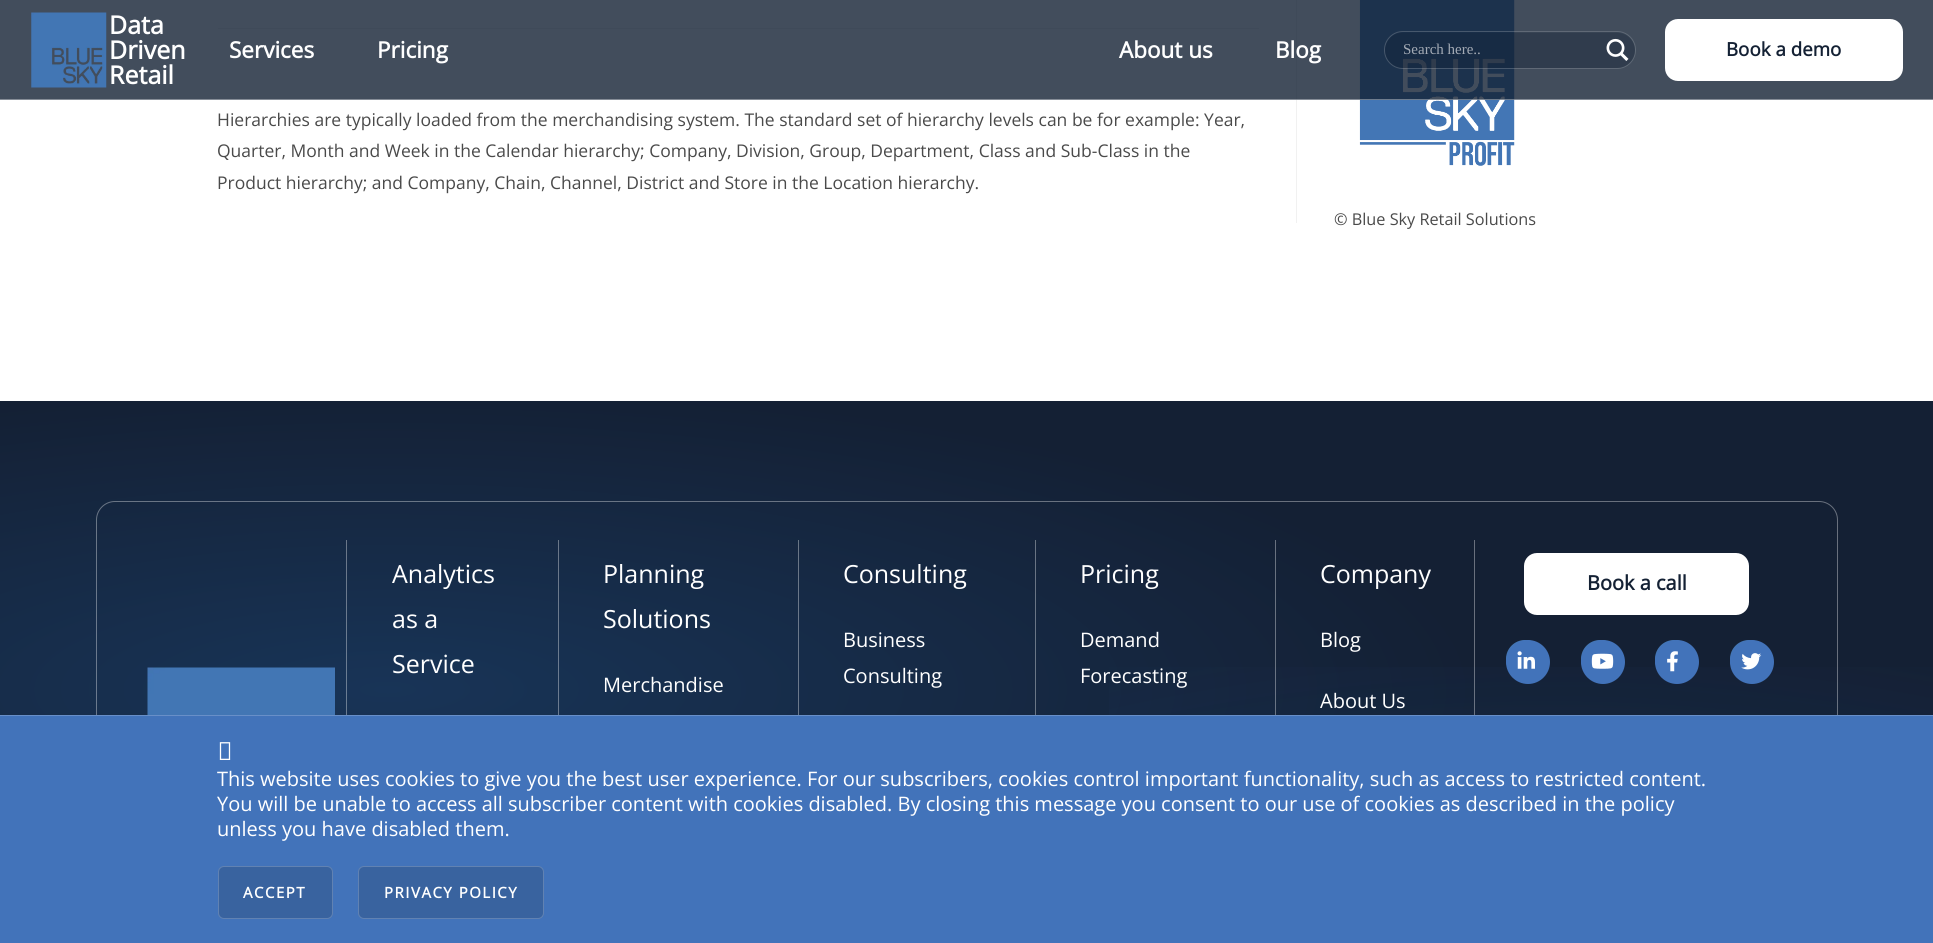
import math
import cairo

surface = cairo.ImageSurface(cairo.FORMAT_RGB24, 1933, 943)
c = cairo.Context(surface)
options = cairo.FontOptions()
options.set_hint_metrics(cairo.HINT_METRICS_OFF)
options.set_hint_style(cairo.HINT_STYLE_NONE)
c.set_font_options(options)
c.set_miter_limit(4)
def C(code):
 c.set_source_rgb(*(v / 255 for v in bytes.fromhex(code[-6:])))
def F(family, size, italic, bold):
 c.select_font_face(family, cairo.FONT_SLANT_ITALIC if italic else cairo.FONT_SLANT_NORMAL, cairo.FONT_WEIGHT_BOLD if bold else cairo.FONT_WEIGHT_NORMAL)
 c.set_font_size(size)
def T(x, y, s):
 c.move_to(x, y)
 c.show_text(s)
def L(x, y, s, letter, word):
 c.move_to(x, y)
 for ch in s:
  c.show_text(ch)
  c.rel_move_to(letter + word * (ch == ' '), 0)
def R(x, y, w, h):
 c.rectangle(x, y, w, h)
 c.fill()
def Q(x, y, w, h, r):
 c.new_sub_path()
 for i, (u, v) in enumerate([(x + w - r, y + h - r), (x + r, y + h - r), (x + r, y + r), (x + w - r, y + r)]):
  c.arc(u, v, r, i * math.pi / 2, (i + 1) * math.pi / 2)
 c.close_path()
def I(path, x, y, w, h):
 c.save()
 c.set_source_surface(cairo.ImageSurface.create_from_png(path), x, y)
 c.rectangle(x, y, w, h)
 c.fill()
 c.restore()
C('ffffff')
c.paint()
C('f1f1f1')
R(1296,0,1,223)
R(218,28,1041,1)
I('3.png',1359,0,156,166)
c.set_source_rgba(0.078,0.129,0.204,0.8)
R(0,0,1933,100)
c.set_source_rgba(1,1,1,0.36)
R(0,99,1933,1)
I('1.png',31,12,76,76)
F('Open Sans',25,0,1)
C('ffffff')
T(109,34,'Data')
T(109,59,'Driven')
T(109,84,'Retail')
F('Open Sans',22.5,0,1)
T(229,58,'Services')
T(377,58,'Pricing')
T(1119,58,'About us')
T(1275,58,'Blog')
c.set_source_rgba(0.078,0.129,0.204,0.2)
Q(1384,31,252,38,19)
c.fill()
Q(1384.5,31.5,251,37,18.5)
c.set_source_rgba(1,1,1,0.2)
c.set_line_width(1)
c.stroke()
c.set_source_rgba(0.078,0.129,0.204,0.2)
Q(1385,33,250,35,17.5)
c.fill()
F('Liberation Serif',15,0,0)
C('a4abb5')
T(1403,54,'Search here..')
I('2.png',1606,38,23,23)
C('ffffff')
Q(1665,19,238,62,13)
c.fill()
F('Open Sans',18.75,0,1)
C('142134')
T(1726,56,'Book a demo')
F('Open Sans',17.5,0,0)
C('4a4a4a')
T(217,126,'Hierarchies are typically loaded from the merchandising system. The standard set of hierarchy levels can be for example: Year,')
T(217,157,'Quarter, Month and Week in the Calendar hierarchy; Company, Division, Group, Department, Class and Sub-Class in the')
T(217,189,'Product hierarchy; and Company, Chain, Channel, District and Store in the Location hierarchy.')
F('Open Sans',16.25,0,0)
T(1334,225,'© Blue Sky Retail Solutions')
gradient = cairo.RadialGradient(0,0,0,0,0,1)
gradient.set_matrix(cairo.Matrix(1 / 2188, 0, 0, 1 / 610, -1 * 387 / 2188, -1 * 689 / 610))
gradient.add_color_stop_rgba(0,0.094,0.204,0.341,1)
gradient.add_color_stop_rgba(.5,0.078,0.125,0.204,1)
c.set_source(gradient)
R(0,401,1933,314)
gradient = cairo.RadialGradient(0,0,0,0,0,1)
gradient.set_matrix(cairo.Matrix(1 / 2188, 0, 0, 1 / 1016, -1 * 1547 / 2188, -1 * 1120 / 1016))
gradient.add_color_stop_rgba(0,0.161,0.502,0.89,.2)
gradient.add_color_stop_rgba(.5,0.161,0.502,0.89,0)
c.set_source(gradient)
R(1109,667,824,48)
Q(96.5,501.5,1741,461,18.5)
c.set_source_rgba(1,1,1,0.36)
c.stroke()
I('4.png',147,667,188,48)
R(346,540,1,175)
F('Open Sans',25,0,0)
C('ffffff')
T(392,583,'Analytics')
T(392,628,'as a')
T(392,673,'Service')
c.set_source_rgba(1,1,1,0.36)
R(558,540,1,175)
C('ffffff')
T(603,583,'Planning')
T(603,628,'Solutions')
c.set_source_rgba(1,1,1,0.36)
R(798,540,1,175)
F('Open Sans',20,0,0)
C('ffffff')
T(603,692,'Merchandise')
F('Open Sans',25,0,0)
T(843,583,'Consulting')
c.set_source_rgba(1,1,1,0.36)
R(1035,540,1,175)
F('Open Sans',20,0,0)
C('ffffff')
T(843,647,'Business')
T(843,683,'Consulting')
F('Open Sans',25,0,0)
T(1080,583,'Pricing')
c.set_source_rgba(1,1,1,0.36)
R(1275,540,1,175)
F('Open Sans',20,0,0)
C('ffffff')
T(1080,647,'Demand')
T(1080,683,'Forecasting')
F('Open Sans',25,0,0)
T(1320,583,'Company')
c.set_source_rgba(1,1,1,0.36)
R(1474,540,1,175)
F('Open Sans',20,0,0)
C('ffffff')
T(1320,647,'Blog')
T(1320,708,'About Us')
Q(1524,553,225,62,13)
c.fill()
F('Open Sans',20,0,1)
C('142134')
T(1587,590,'Book a call')
C('4376b5')
c.new_path()
c.arc(1525,659,19,0,2 * math.pi)
c.fill()
C('4273ba')
c.arc(1528,662,22,0,2 * math.pi)
c.fill()
I('5.png',1517,651,18,18)
C('4376b5')
c.arc(1600,659,19,0,2 * math.pi)
c.fill()
C('4273ba')
c.arc(1603,662,22,0,2 * math.pi)
c.fill()
I('6.png',1591,653,23,16)
C('4376b5')
c.arc(1674,659,19,0,2 * math.pi)
c.fill()
C('4273ba')
c.arc(1677,662,22,0,2 * math.pi)
c.fill()
I('7.png',1667,651,11,21)
C('4376b5')
c.arc(1749,659,19,0,2 * math.pi)
c.fill()
C('4273ba')
c.arc(1752,662,22,0,2 * math.pi)
c.fill()
I('8.png',1741,653,21,17)
R(0,716,1933,227)
C('688fc8')
R(0,715,1933,1)
I('9.png',219,742,12,18)
F('Open Sans',20,0,0)
C('ffffff')
T(217,786,'This website uses cookies to give you the best user experience. For our subscribers, cookies control important functionality, such as access to restricted content.')
T(217,811,'You will be unable to access all subscriber content with cookies disabled. By closing this message you consent to our use of cookies as described in the policy')
T(217,836,'unless you have disabled them.')
C('39639f')
Q(218,866,115,53,6)
c.fill()
Q(218.5,866.5,114,52,5.5)
c.set_source_rgba(1,1,1,0.2)
c.stroke()
F('Open Sans',15,0,1)
C('ffffff')
L(243,898,'ACCEPT',1.5,0)
C('39639f')
Q(358,866,186,53,6)
c.fill()
Q(358.5,866.5,185,52,5.5)
c.set_source_rgba(1,1,1,0.2)
c.stroke()
C('ffffff')
L(384,898,'PRIVACY POLICY',1.5,0)
surface.write_to_png('o.png')
